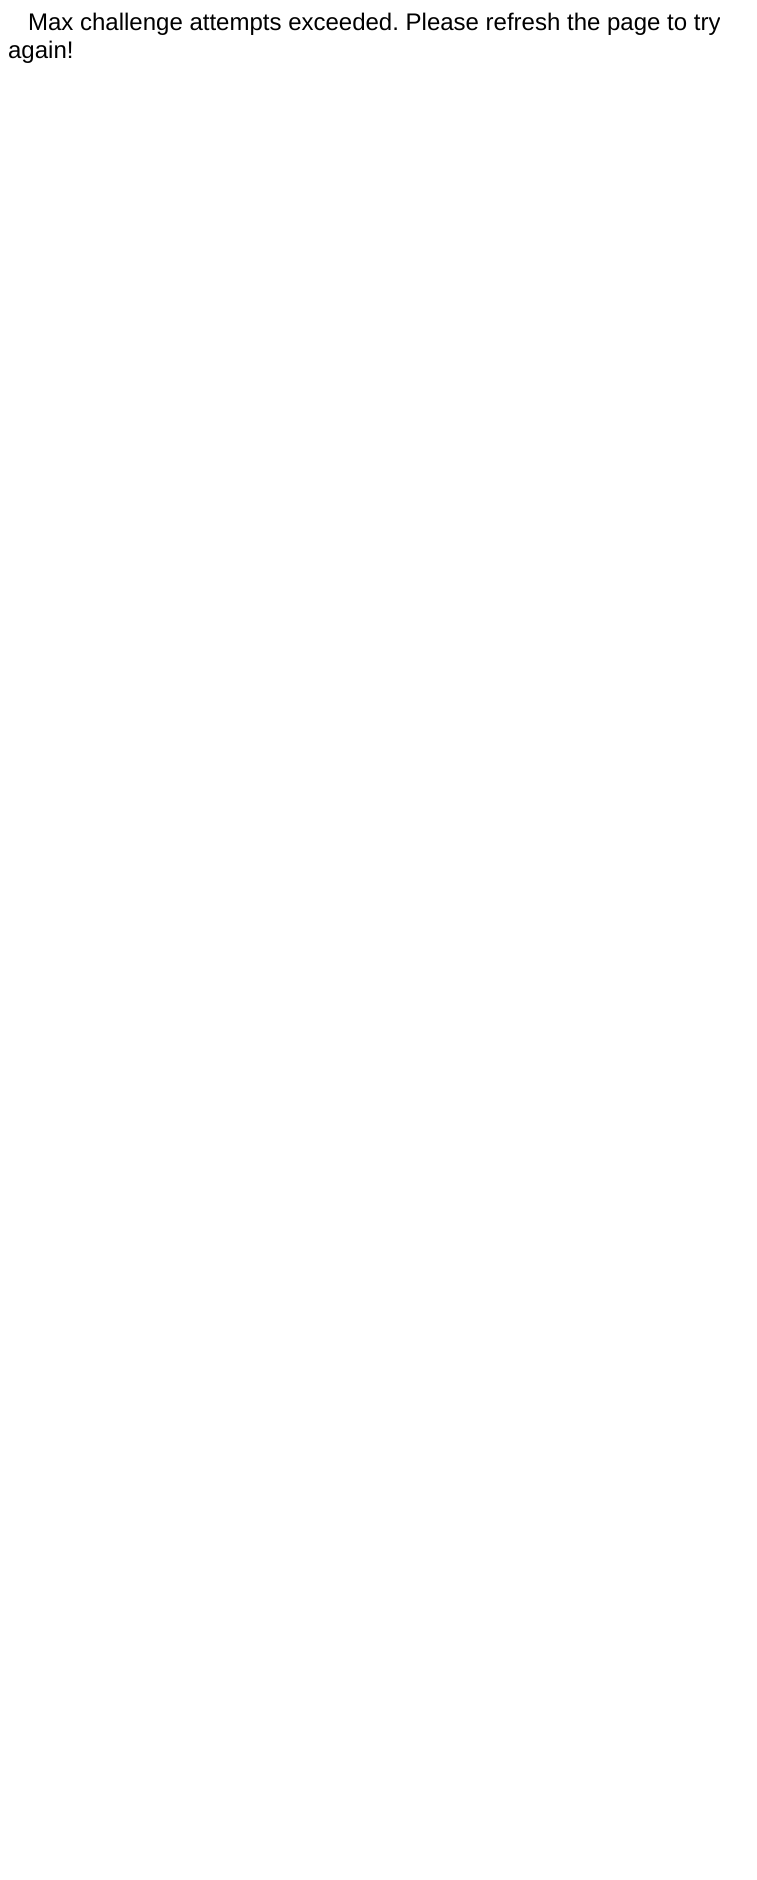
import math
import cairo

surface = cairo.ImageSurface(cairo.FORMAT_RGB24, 757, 1880)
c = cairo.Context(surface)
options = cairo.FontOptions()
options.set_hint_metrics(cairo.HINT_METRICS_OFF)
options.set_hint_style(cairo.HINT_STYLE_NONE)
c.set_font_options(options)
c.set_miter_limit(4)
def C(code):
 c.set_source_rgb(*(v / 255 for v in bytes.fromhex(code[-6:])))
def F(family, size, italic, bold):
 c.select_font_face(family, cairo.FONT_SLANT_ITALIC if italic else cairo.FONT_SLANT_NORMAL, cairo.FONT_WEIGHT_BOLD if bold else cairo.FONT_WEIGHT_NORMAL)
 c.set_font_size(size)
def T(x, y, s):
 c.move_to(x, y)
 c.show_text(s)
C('ffffff')
c.paint()
F('Liberation Sans',24,0,0)
C('000000')
T(28,30,'Max challenge attempts exceeded. Please refresh the page to try')
T(8,58,'again!')
surface.write_to_png('o.png')
